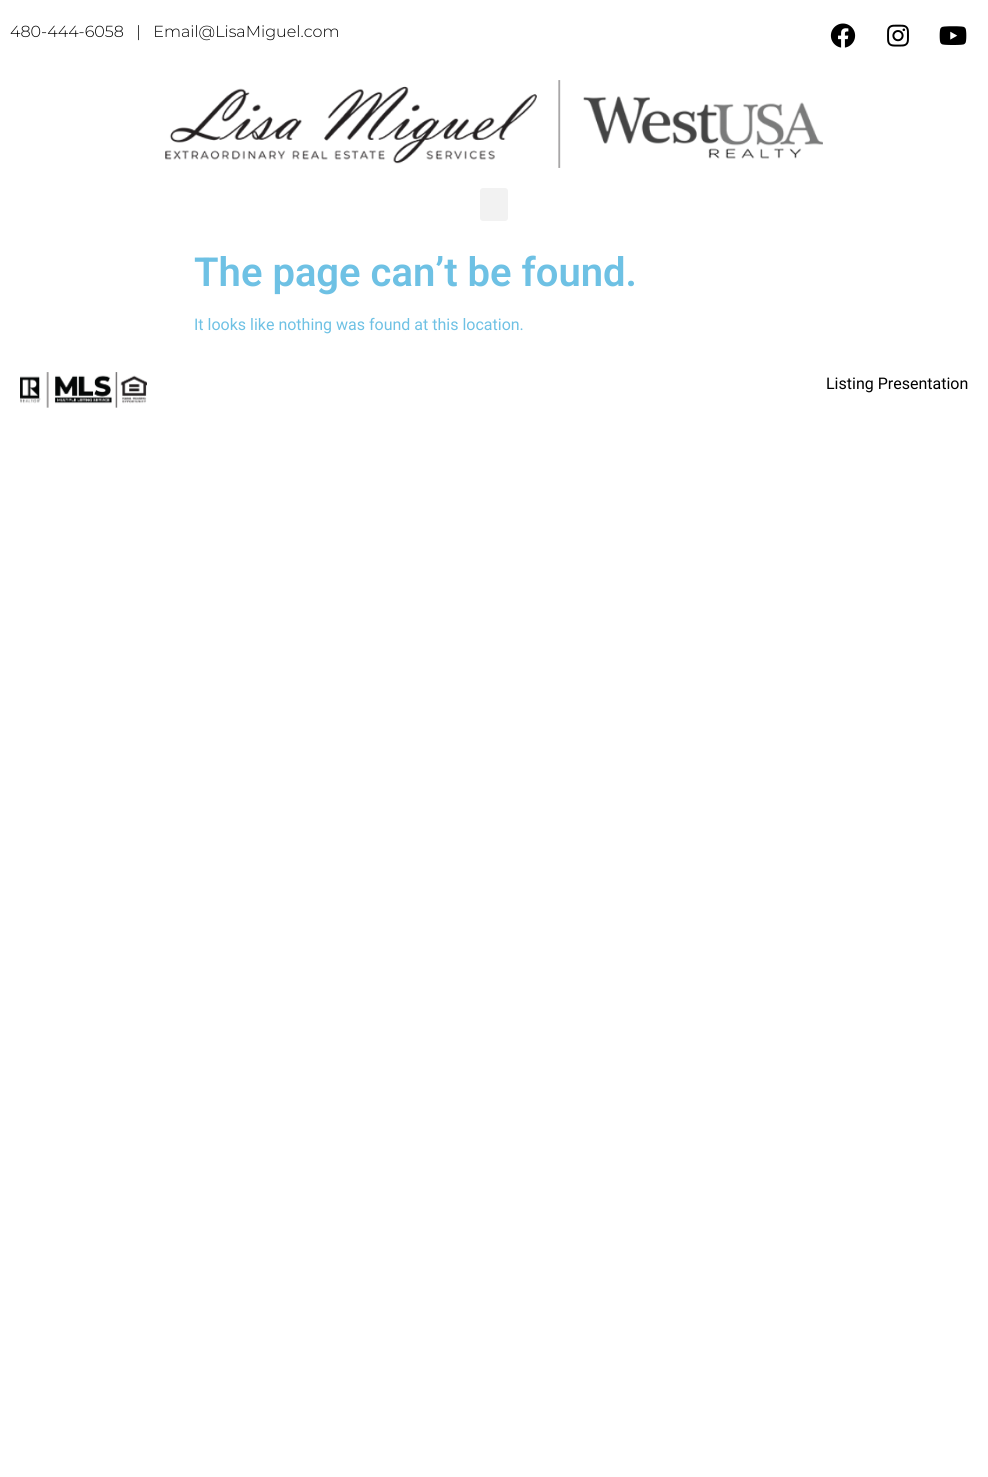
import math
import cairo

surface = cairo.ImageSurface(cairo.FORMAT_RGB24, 988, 1477)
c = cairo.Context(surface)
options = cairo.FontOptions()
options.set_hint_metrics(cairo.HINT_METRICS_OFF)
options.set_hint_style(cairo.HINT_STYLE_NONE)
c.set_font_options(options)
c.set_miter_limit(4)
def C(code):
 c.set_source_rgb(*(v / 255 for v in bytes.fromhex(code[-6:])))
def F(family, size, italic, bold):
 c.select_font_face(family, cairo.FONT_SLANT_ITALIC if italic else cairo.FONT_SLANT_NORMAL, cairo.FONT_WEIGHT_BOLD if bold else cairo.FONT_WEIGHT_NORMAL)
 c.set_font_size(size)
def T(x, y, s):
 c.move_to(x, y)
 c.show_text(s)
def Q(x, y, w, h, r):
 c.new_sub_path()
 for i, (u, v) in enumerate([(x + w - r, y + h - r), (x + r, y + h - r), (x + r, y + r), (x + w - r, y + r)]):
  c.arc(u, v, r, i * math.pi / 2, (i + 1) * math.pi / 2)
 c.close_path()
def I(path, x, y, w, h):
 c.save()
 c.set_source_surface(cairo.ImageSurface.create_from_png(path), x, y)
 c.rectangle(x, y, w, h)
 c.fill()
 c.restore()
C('ffffff')
c.paint()
F('Montserrat Light',16,0,0)
C('000000')
T(10,37,'480-444-6058   |   Email@LisaMiguel.com')
I('1.png',830,23,26,25)
I('2.png',887,24,22,23)
I('3.png',939,26,28,19)
I('4.png',165,80,658,88)
C('f2f2f2')
Q(480,188,28,33,3)
c.fill()
F('Roboto SemiBold',40,0,0)
C('6ec1e4')
T(194,286,'The page can’t be found.')
F('Roboto',16,0,0)
T(194,330,'It looks like nothing was found at this location.')
I('5.png',20,372,127,36)
C('000000')
T(826,389,'Listing Presentation')
surface.write_to_png('o.png')
